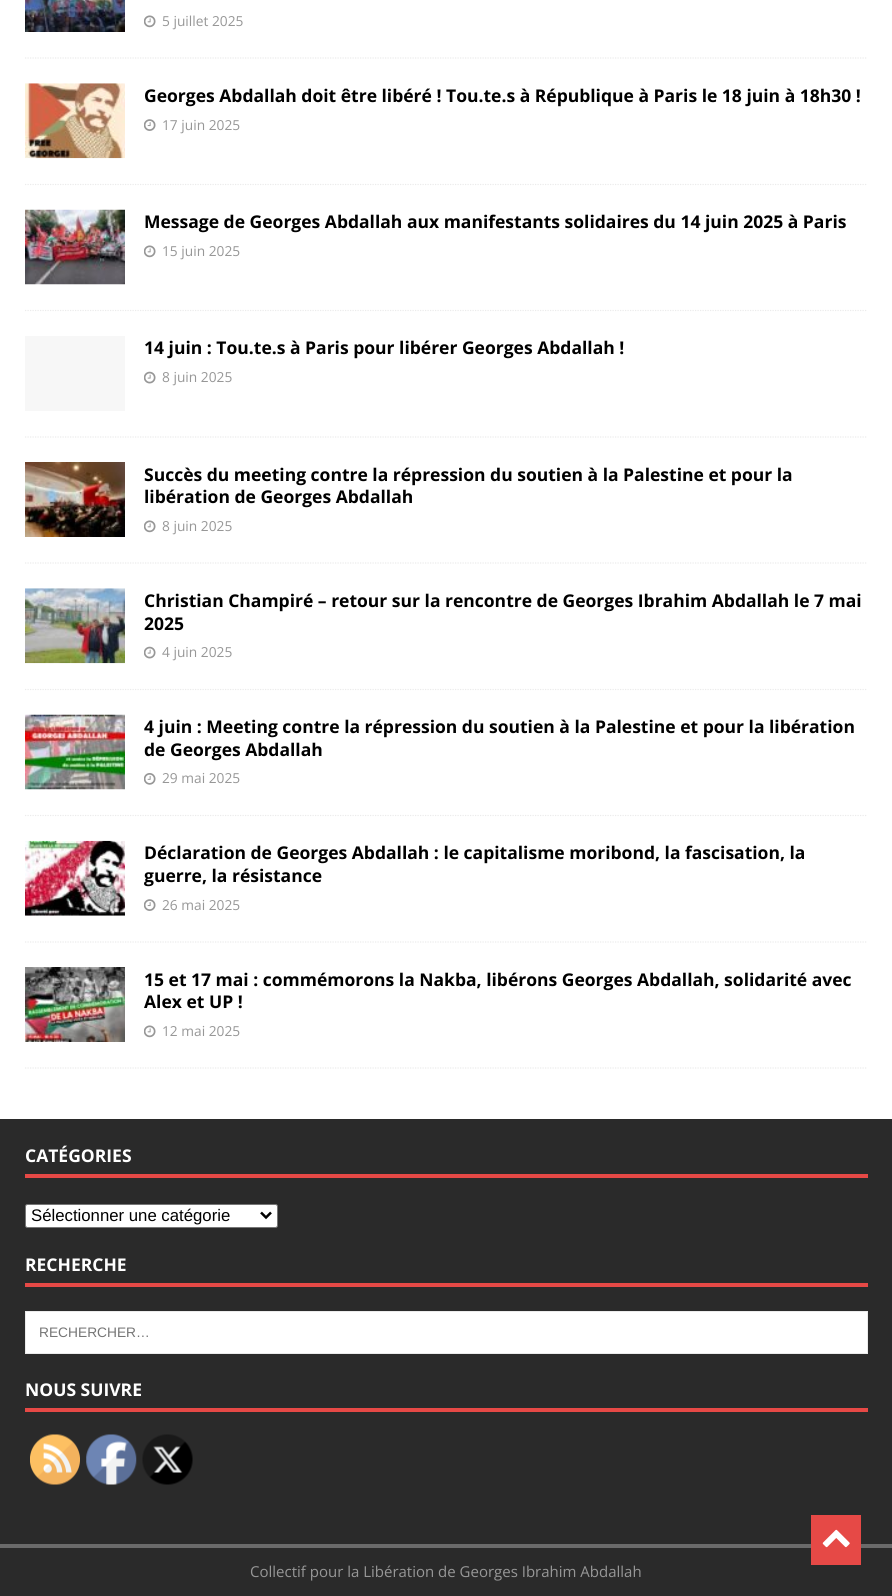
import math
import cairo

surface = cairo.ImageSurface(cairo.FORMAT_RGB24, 892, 1596)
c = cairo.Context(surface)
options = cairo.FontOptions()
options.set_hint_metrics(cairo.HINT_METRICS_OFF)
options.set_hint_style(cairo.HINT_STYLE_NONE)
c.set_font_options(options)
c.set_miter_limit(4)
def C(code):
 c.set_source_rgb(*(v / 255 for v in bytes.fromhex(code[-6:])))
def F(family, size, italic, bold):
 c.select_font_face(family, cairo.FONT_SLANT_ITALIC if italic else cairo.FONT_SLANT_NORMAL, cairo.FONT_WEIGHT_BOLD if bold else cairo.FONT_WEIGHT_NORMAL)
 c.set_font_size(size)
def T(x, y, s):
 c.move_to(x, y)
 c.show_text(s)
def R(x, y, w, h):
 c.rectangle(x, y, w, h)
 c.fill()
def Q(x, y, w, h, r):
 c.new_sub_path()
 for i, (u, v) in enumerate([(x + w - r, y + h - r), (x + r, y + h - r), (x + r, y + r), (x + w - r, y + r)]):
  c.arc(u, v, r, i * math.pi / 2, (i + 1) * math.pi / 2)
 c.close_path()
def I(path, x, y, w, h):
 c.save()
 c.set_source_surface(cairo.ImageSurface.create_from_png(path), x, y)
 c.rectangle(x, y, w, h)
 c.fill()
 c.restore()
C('ffffff')
c.paint()
c.new_path()
c.move_to(25,58)
c.line_to(867.5,58)
C('ebebeb')
c.set_line_width(1.2)
c.set_dash([1.25,1.25])
c.stroke()
I('1.png',25,0,100,32)
I('2.png',144,15,12,13)
F('Open Sans',13.75,0,0)
C('979797')
T(162,26,'5 juillet 2025')
c.new_path()
c.move_to(25,184.5)
c.line_to(867.5,184.5)
C('ebebeb')
c.stroke()
I('3.png',25,83,100,76)
F('Open Sans',17.5,0,1)
C('000000')
T(144,102,'Georges Abdallah doit être libéré ! Tou.te.s à République à Paris le 18 juin à 18h30 !')
I('4.png',144,119,12,12)
F('Open Sans',13.75,0,0)
C('979797')
T(162,130,'17 juin 2025')
c.new_path()
c.move_to(25,310.5)
c.line_to(867.5,310.5)
C('ebebeb')
c.stroke()
I('5.png',25,209,100,76)
F('Open Sans',17.5,0,1)
C('000000')
T(144,228,'Message de Georges Abdallah aux manifestants solidaires du 14 juin 2025 à Paris')
I('2.png',144,245,12,13)
F('Open Sans',13.75,0,0)
C('979797')
T(162,256,'15 juin 2025')
c.new_path()
c.move_to(25,437)
c.line_to(867.5,437)
C('ebebeb')
c.stroke()
C('f7f7f7')
R(25,336,100,75)
F('Open Sans',17.5,0,1)
C('000000')
T(144,354,'14 juin : Tou.te.s à Paris pour libérer Georges Abdallah !')
I('6.png',144,371,12,13)
F('Open Sans',13.75,0,0)
C('979797')
T(162,382,'8 juin 2025')
c.new_path()
c.move_to(25,563)
c.line_to(867.5,563)
C('ebebeb')
c.stroke()
I('7.png',25,462,100,75)
F('Open Sans',17.5,0,1)
C('000000')
T(144,481,'Succès du meeting contre la répression du soutien à la Palestine et pour la')
T(144,503,'libération de Georges Abdallah')
I('2.png',144,520,12,13)
F('Open Sans',13.75,0,0)
C('979797')
T(162,531,'8 juin 2025')
c.new_path()
c.move_to(25,689.5)
c.line_to(867.5,689.5)
C('ebebeb')
c.stroke()
I('8.png',25,588,100,76)
F('Open Sans',17.5,0,1)
C('000000')
T(144,607,'Christian Champiré – retour sur la rencontre de Georges Ibrahim Abdallah le 7 mai')
T(144,630,'2025')
I('6.png',144,646,12,13)
F('Open Sans',13.75,0,0)
C('979797')
T(162,657,'4 juin 2025')
c.new_path()
c.move_to(25,815.5)
c.line_to(867.5,815.5)
C('ebebeb')
c.stroke()
I('9.png',25,714,100,76)
F('Open Sans',17.5,0,1)
C('000000')
T(144,733,'4 juin : Meeting contre la répression du soutien à la Palestine et pour la libération')
T(144,756,'de Georges Abdallah')
I('10.png',144,773,12,12)
F('Open Sans',13.75,0,0)
C('979797')
T(162,783,'29 mai 2025')
c.new_path()
c.move_to(25,942)
c.line_to(867.5,942)
C('ebebeb')
c.stroke()
I('11.png',25,840,100,76)
F('Open Sans',17.5,0,1)
C('000000')
T(144,859,'Déclaration de Georges Abdallah : le capitalisme moribond, la fascisation, la')
T(144,882,'guerre, la résistance')
I('4.png',144,899,12,12)
F('Open Sans',13.75,0,0)
C('979797')
T(162,910,'26 mai 2025')
c.new_path()
c.move_to(25,1068)
c.line_to(867.5,1068)
C('ebebeb')
c.stroke()
I('12.png',25,967,100,75)
F('Open Sans',17.5,0,1)
C('000000')
T(144,986,'15 et 17 mai : commémorons la Nakba, libérons Georges Abdallah, solidarité avec')
T(144,1008,'Alex et UP !')
I('2.png',144,1025,12,13)
F('Open Sans',13.75,0,0)
C('979797')
T(162,1036,'12 mai 2025')
C('2a2a2a')
R(0,1119,892,425)
C('e64946')
R(25,1174,843,4)
F('Open Sans',17.5,0,1)
C('ffffff')
T(25,1162,'CATÉGORIES')
Q(25.5,1204.5,252,23,2)
c.fill_preserve()
C('767676')
c.set_line_width(1)
c.set_dash([])
c.stroke()
c.new_path()
c.move_to(261,1212.5)
c.line_to(266,1217.5)
c.line_to(271,1212.5)
C('000000')
c.set_line_width(2.5)
c.stroke()
F('Liberation Sans',16.75,0,0)
T(31,1221,'Sélectionner une catégorie')
C('e64946')
R(25,1283,843,4)
F('Open Sans',17.5,0,1)
C('ffffff')
T(25,1271,'RECHERCHE')
c.rectangle(25.5,1311.5,842,42)
c.fill_preserve()
C('ebebeb')
c.set_line_width(1)
c.stroke()
F('Liberation Sans',13.75,0,0)
C('757575')
T(39,1337,'RECHERCHER…')
C('e64946')
R(25,1408,843,4)
F('Open Sans',17.5,0,1)
C('ffffff')
T(25,1396,'NOUS SUIVRE')
I('13.png',30,1434,50,51)
I('14.png',86,1434,51,51)
I('15.png',142,1434,51,51)
C('2a2a2a')
R(0,1548,892,48)
C('6a6a6a')
R(0,1544,892,4)
C('e64946')
R(811,1515,50,50)
I('16.png',822,1529,28,19)
F('Open Sans',15,0,0)
C('979797')
T(250,1577,'Collectif pour la Libération de Georges Ibrahim Abdallah')
surface.write_to_png('o.png')
